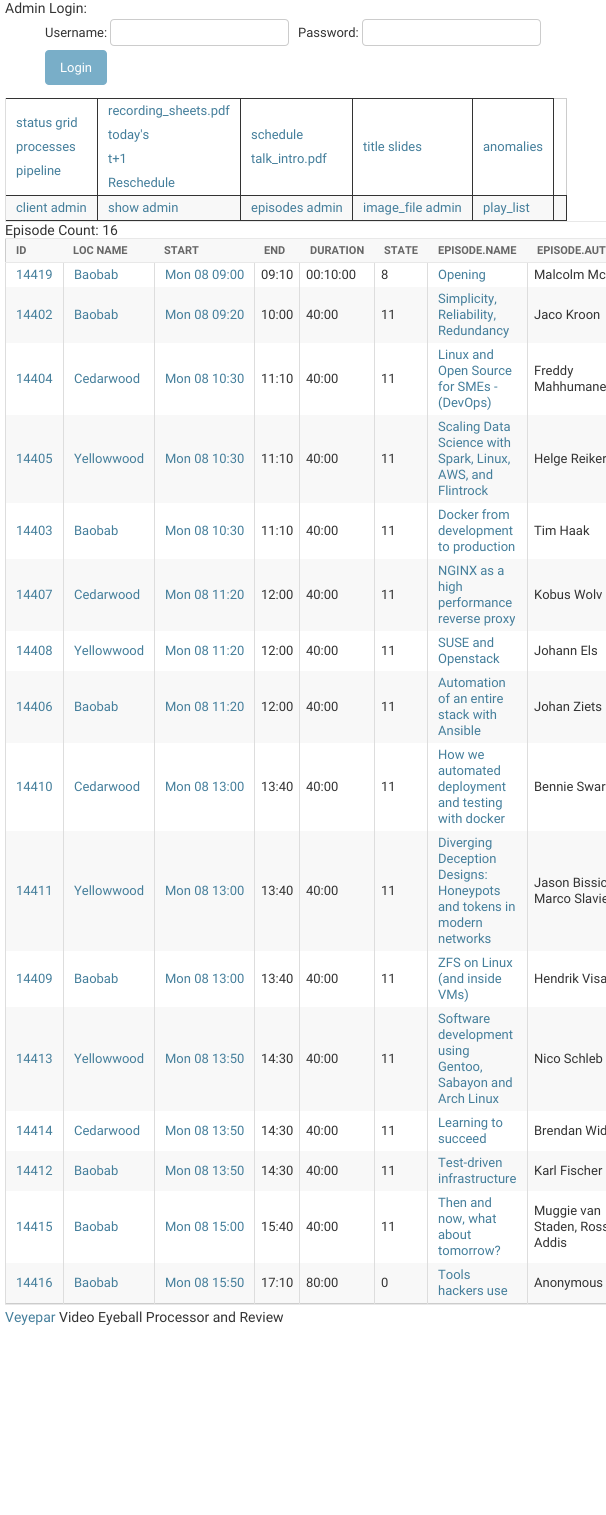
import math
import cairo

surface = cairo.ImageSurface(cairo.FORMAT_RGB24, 606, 1515)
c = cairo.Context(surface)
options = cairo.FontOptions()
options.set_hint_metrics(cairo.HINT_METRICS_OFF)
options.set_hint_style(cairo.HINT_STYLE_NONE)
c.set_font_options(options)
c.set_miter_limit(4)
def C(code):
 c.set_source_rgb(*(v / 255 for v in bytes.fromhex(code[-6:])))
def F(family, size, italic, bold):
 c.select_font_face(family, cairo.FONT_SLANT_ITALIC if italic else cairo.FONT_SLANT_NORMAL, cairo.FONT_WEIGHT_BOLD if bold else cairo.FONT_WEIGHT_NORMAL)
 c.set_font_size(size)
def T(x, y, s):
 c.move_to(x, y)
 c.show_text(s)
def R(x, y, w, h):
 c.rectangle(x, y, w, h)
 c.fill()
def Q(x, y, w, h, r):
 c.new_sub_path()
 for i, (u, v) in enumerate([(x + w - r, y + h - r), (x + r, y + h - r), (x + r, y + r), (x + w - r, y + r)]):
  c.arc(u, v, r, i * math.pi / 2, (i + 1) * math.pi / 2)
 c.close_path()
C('ffffff')
c.paint()
F('Roboto',14,0,0)
C('333333')
T(5,13,'Admin Login:')
F('Roboto',13,0,0)
T(45,37,'Username:')
Q(110.5,19.5,178,26,3.5)
C('cccccc')
c.set_line_width(1)
c.stroke()
C('333333')
T(298,37,'Password:')
Q(362.5,19.5,178,26,3.5)
C('cccccc')
c.stroke()
C('79aec8')
Q(45,50,62,35,4)
c.fill()
C('ffffff')
T(60,72,'Login')
C('cccccc')
R(554,98,13,1)
R(566,98,1,97)
C('333333')
R(5,98,549,1)
C('f8f8f8')
R(6,196,560,24)
C('333333')
R(97,195,470,1)
R(566,195,1,26)
R(553,220,14,1)
R(553,195,1,26)
R(472,220,82,1)
R(472,195,1,26)
R(352,220,121,1)
R(352,195,1,26)
R(240,220,113,1)
R(240,195,1,26)
R(97,220,144,1)
R(97,195,1,26)
R(97,98,1,98)
R(5,220,93,1)
C('dddddd')
R(5,195,1,26)
C('333333')
R(5,195,93,1)
C('dddddd')
R(5,98,1,98)
C('447e9b')
T(16,127,'status grid')
T(16,151,'processes')
T(16,175,'pipeline')
C('333333')
R(240,98,1,98)
C('447e9b')
T(108,115,'recording_sheets.pdf')
T(108,139,'today\'s')
T(108,163,'t+1')
T(108,187,'Reschedule')
C('333333')
R(352,98,1,98)
C('447e9b')
T(251,139,'schedule')
T(251,163,'talk_intro.pdf')
C('333333')
R(472,98,1,98)
C('447e9b')
T(363,151,'title slides')
C('333333')
R(553,98,1,98)
C('447e9b')
T(483,151,'anomalies')
T(16,212,'client admin')
T(108,212,'show admin')
T(251,212,'episodes admin')
T(363,212,'image_file admin')
T(483,212,'play_list')
C('e8e8e8')
R(5,221,601,1)
F('Roboto',14,0,0)
C('333333')
T(5,235,'Episode Count: 16')
C('cccccc')
R(5,1303,601,1)
R(5,238,1,24)
C('f8f8f8')
R(6,239,600,23)
F('Roboto',11,0,1)
C('666666')
T(16,254,'ID')
T(73,254,'LOC NAME')
T(164,254,'START')
T(264,254,'END')
T(310,254,'DURATION')
T(384,254,'STATE')
T(438,254,'EPISODE.NAME')
C('e8e8e8')
R(5,238,601,1)
C('dddddd')
R(5,262,1,1042)
C('f8f8f8')
R(6,287,600,56)
R(6,415,600,88)
R(6,559,600,72)
R(6,671,600,72)
R(6,831,600,120)
R(6,1007,600,104)
R(6,1151,600,40)
R(6,1263,600,40)
C('dddddd')
R(63,262,1,1042)
R(154,262,1,1042)
R(254,262,1,1042)
R(299,262,1,1042)
R(374,262,1,1042)
R(427,262,1,1042)
R(527,262,1,1042)
C('e8e8e8')
R(5,262,601,1)
C('666666')
T(537,254,'EPISODE.AUT')
F('Roboto',13,0,0)
C('447e9b')
T(16,279,'14419')
T(74,279,'Baobab')
T(165,279,'Mon 08 09:00')
C('333333')
T(261,279,'09:10')
T(306,279,'00:10:00')
T(381,279,'8')
C('447e9b')
T(438,279,'Opening')
C('333333')
T(534,279,'Malcolm Mc')
C('447e9b')
T(16,319,'14402')
T(74,319,'Baobab')
T(165,319,'Mon 08 09:20')
C('333333')
T(261,319,'10:00')
T(306,319,'40:00')
T(381,319,'11')
C('447e9b')
T(438,303,'Simplicity,')
T(438,319,'Reliability,')
T(438,335,'Redundancy')
C('333333')
T(534,319,'Jaco Kroon')
C('447e9b')
T(16,383,'14404')
T(74,383,'Cedarwood')
T(165,383,'Mon 08 10:30')
C('333333')
T(261,383,'11:10')
T(306,383,'40:00')
T(381,383,'11')
C('447e9b')
T(438,359,'Linux and')
T(438,375,'Open Source')
T(438,391,'for SMEs -')
T(438,407,'(DevOps)')
C('333333')
T(534,375,'Freddy')
T(534,391,'Mahhumane')
C('447e9b')
T(16,463,'14405')
T(74,463,'Yellowwood')
T(165,463,'Mon 08 10:30')
C('333333')
T(261,463,'11:10')
T(306,463,'40:00')
T(381,463,'11')
C('447e9b')
T(438,431,'Scaling Data')
T(438,447,'Science with')
T(438,463,'Spark, Linux,')
T(438,479,'AWS, and')
T(438,495,'Flintrock')
C('333333')
T(534,463,'Helge Reiker')
C('447e9b')
T(16,535,'14403')
T(74,535,'Baobab')
T(165,535,'Mon 08 10:30')
C('333333')
T(261,535,'11:10')
T(306,535,'40:00')
T(381,535,'11')
C('447e9b')
T(438,519,'Docker from')
T(438,535,'development')
T(438,551,'to production')
C('333333')
T(534,535,'Tim Haak')
C('447e9b')
T(16,599,'14407')
T(74,599,'Cedarwood')
T(165,599,'Mon 08 11:20')
C('333333')
T(261,599,'12:00')
T(306,599,'40:00')
T(381,599,'11')
C('447e9b')
T(438,575,'NGINX as a')
T(438,591,'high')
T(438,607,'performance')
T(438,623,'reverse proxy')
C('333333')
T(534,599,'Kobus Wolv')
C('447e9b')
T(16,655,'14408')
T(74,655,'Yellowwood')
T(165,655,'Mon 08 11:20')
C('333333')
T(261,655,'12:00')
T(306,655,'40:00')
T(381,655,'11')
C('447e9b')
T(438,647,'SUSE and')
T(438,663,'Openstack')
C('333333')
T(534,655,'Johann Els')
C('447e9b')
T(16,711,'14406')
T(74,711,'Baobab')
T(165,711,'Mon 08 11:20')
C('333333')
T(261,711,'12:00')
T(306,711,'40:00')
T(381,711,'11')
C('447e9b')
T(438,687,'Automation')
T(438,703,'of an entire')
T(438,719,'stack with')
T(438,735,'Ansible')
C('333333')
T(534,711,'Johan Ziets')
C('447e9b')
T(16,791,'14410')
T(74,791,'Cedarwood')
T(165,791,'Mon 08 13:00')
C('333333')
T(261,791,'13:40')
T(306,791,'40:00')
T(381,791,'11')
C('447e9b')
T(438,759,'How we')
T(438,775,'automated')
T(438,791,'deployment')
T(438,807,'and testing')
T(438,823,'with docker')
C('333333')
T(534,791,'Bennie Swar')
C('447e9b')
T(16,895,'14411')
T(74,895,'Yellowwood')
T(165,895,'Mon 08 13:00')
C('333333')
T(261,895,'13:40')
T(306,895,'40:00')
T(381,895,'11')
C('447e9b')
T(438,847,'Diverging')
T(438,863,'Deception')
T(438,879,'Designs:')
T(438,895,'Honeypots')
T(438,911,'and tokens in')
T(438,927,'modern')
T(438,943,'networks')
C('333333')
T(534,887,'Jason Bissic')
T(534,903,'Marco Slavie')
C('447e9b')
T(16,983,'14409')
T(74,983,'Baobab')
T(165,983,'Mon 08 13:00')
C('333333')
T(261,983,'13:40')
T(306,983,'40:00')
T(381,983,'11')
C('447e9b')
T(438,967,'ZFS on Linux')
T(438,983,'(and inside')
T(438,999,'VMs)')
C('333333')
T(534,983,'Hendrik Visa')
C('447e9b')
T(16,1063,'14413')
T(74,1063,'Yellowwood')
T(165,1063,'Mon 08 13:50')
C('333333')
T(261,1063,'14:30')
T(306,1063,'40:00')
T(381,1063,'11')
C('447e9b')
T(438,1023,'Software')
T(438,1039,'development')
T(438,1055,'using')
T(438,1071,'Gentoo,')
T(438,1087,'Sabayon and')
T(438,1103,'Arch Linux')
C('333333')
T(534,1063,'Nico Schleb')
C('447e9b')
T(16,1135,'14414')
T(74,1135,'Cedarwood')
T(165,1135,'Mon 08 13:50')
C('333333')
T(261,1135,'14:30')
T(306,1135,'40:00')
T(381,1135,'11')
C('447e9b')
T(438,1127,'Learning to')
T(438,1143,'succeed')
C('333333')
T(534,1135,'Brendan Wid')
C('447e9b')
T(16,1175,'14412')
T(74,1175,'Baobab')
T(165,1175,'Mon 08 13:50')
C('333333')
T(261,1175,'14:30')
T(306,1175,'40:00')
T(381,1175,'11')
C('447e9b')
T(438,1167,'Test-driven')
T(438,1183,'infrastructure')
C('333333')
T(534,1175,'Karl Fischer')
C('447e9b')
T(16,1231,'14415')
T(74,1231,'Baobab')
T(165,1231,'Mon 08 15:00')
C('333333')
T(261,1231,'15:40')
T(306,1231,'40:00')
T(381,1231,'11')
C('447e9b')
T(438,1207,'Then and')
T(438,1223,'now, what')
T(438,1239,'about')
T(438,1255,'tomorrow?')
C('333333')
T(534,1215,'Muggie van')
T(534,1231,'Staden, Ross')
T(534,1247,'Addis')
C('447e9b')
T(16,1287,'14416')
T(74,1287,'Baobab')
T(165,1287,'Mon 08 15:50')
C('333333')
T(261,1287,'17:10')
T(306,1287,'80:00')
T(381,1287,'0')
C('447e9b')
T(438,1279,'Tools')
T(438,1295,'hackers use')
C('333333')
T(534,1287,'Anonymous')
C('e8e8e8')
R(5,1304,601,1)
F('Roboto',14,0,0)
C('447e9b')
T(5,1322,'Veyepar')
C('333333')
T(59,1322,'Video Eyeball Processor and Review')
surface.write_to_png('o.png')
